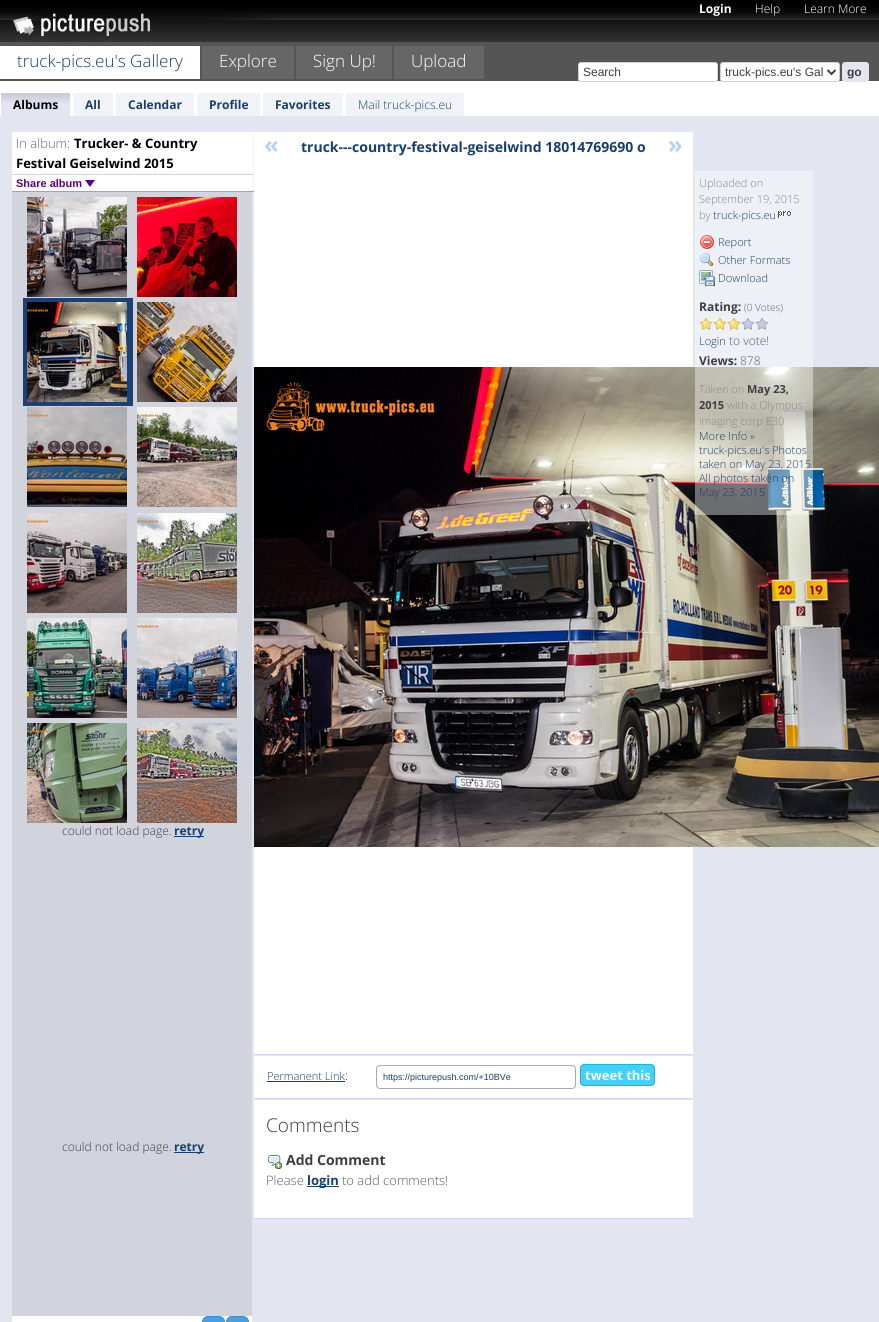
import math
import cairo

surface = cairo.ImageSurface(cairo.FORMAT_RGB24, 879, 1322)
c = cairo.Context(surface)
options = cairo.FontOptions()
options.set_hint_metrics(cairo.HINT_METRICS_OFF)
options.set_hint_style(cairo.HINT_STYLE_NONE)
c.set_font_options(options)
c.set_miter_limit(4)
def C(code):
 c.set_source_rgb(*(v / 255 for v in bytes.fromhex(code[-6:])))
def F(family, size, italic, bold):
 c.select_font_face(family, cairo.FONT_SLANT_ITALIC if italic else cairo.FONT_SLANT_NORMAL, cairo.FONT_WEIGHT_BOLD if bold else cairo.FONT_WEIGHT_NORMAL)
 c.set_font_size(size)
def T(x, y, s):
 c.move_to(x, y)
 c.show_text(s)
def R(x, y, w, h):
 c.rectangle(x, y, w, h)
 c.fill()
def Q(x, y, w, h, r):
 c.new_sub_path()
 for i, (u, v) in enumerate([(x + w - r, y + h - r), (x + r, y + h - r), (x + r, y + r), (x + w - r, y + r)]):
  c.arc(u, v, r, i * math.pi / 2, (i + 1) * math.pi / 2)
 c.close_path()
def I(path, x, y, w, h):
 c.save()
 c.set_source_surface(cairo.ImageSurface.create_from_png(path), x, y)
 c.rectangle(x, y, w, h)
 c.fill()
 c.restore()
C('e3e6f1')
c.paint()
I('1.png',0,0,879,42)
I('2.png',13,8,264,34)
F('Open Sans',12,0,1)
C('ffffff')
T(699,13,'Login')
F('Open Sans Light',12,0,0)
T(755,13,'Help')
T(804,13,'Learn More')
C('555555')
R(0,42,879,39)
C('ffffff')
R(0,46,200,33)
F('Open Sans Light',17,0,0)
C('163f73')
T(17,67,'truck-pics.eu\'s Gallery')
C('666666')
R(202,46,92,33)
C('ffffff')
T(219,67,'Explore')
C('666666')
R(296,46,96,33)
C('ffffff')
T(313,67,'Sign Up!')
C('666666')
R(394,46,90,33)
C('ffffff')
T(411,67,'Upload')
R(0,81,879,35)
Q(578.5,62.5,139,19,2.5)
c.fill_preserve()
C('d0d0d0')
c.set_line_width(1)
c.stroke()
F('Liberation Sans',12,0,0)
C('3e3e41')
T(583,76,'Search')
C('ffffff')
Q(720.5,62.5,119,19,2.5)
c.fill_preserve()
C('d0d0d0')
c.stroke()
c.new_path()
c.move_to(827.5,70)
c.line_to(831.5,74)
c.line_to(835.5,70)
C('3e3e3e')
c.set_line_width(2)
c.stroke()
C('3e3e41')
T(725,76,'truck-pics.eu\'s Gal')
C('e3e6f1')
Q(842.5,62.5,26,19,2.5)
c.fill_preserve()
c.set_line_width(1)
c.stroke()
F('Liberation Sans',12,0,1)
C('3e3e41')
T(847,76,'go')
C('e3e6f1')
R(1,93,69,23)
I('3.png',1,93,69,10)
F('Open Sans',12,0,1)
C('000000')
T(13,109,'Albums')
C('f1f3f9')
R(73,93,40,23)
C('163f73')
T(85,109,'All')
C('f1f3f9')
R(116,93,78,23)
C('163f73')
T(128,109,'Calendar')
C('f1f3f9')
R(197,93,63,23)
C('163f73')
T(209,109,'Profile')
C('f1f3f9')
R(263,93,80,23)
C('163f73')
T(275,109,'Favorites')
C('f1f3f9')
R(346,93,118,23)
F('Open Sans Light',12,0,0)
C('163f73')
T(358,109,'Mail truck-pics.eu')
C('ffffff')
R(12,132,241,59)
C('f3f3f3')
R(253,132,1,60)
C('a4a4a4')
R(12,191,242,1)
F('Open Sans Light',13,0,0)
C('666666')
T(16,148,'In album:')
F('Open Sans',13,0,1)
C('000000')
T(74,148,'Trucker- & Country')
T(16,168,'Festival Geiselwind 2015')
C('d0d0e0')
R(12,174,241,1)
F('Liberation Sans',11,0,1)
C('5e0085')
T(16,187,'Share album')
c.new_path()
c.move_to(85,180)
c.line_to(95,180)
c.line_to(90,187)
c.close_path()
c.fill()
C('d2d4dd')
R(12,192,240,1124)
I('4.png',27,197,100,100)
I('5.png',137,197,100,100)
C('194077')
R(23,298,110,108)
I('6.png',27,302,100,100)
I('7.png',137,302,100,100)
I('8.png',27,407,100,100)
I('9.png',137,407,100,100)
I('10.png',27,513,100,100)
I('11.png',137,513,100,100)
I('12.png',27,618,100,100)
I('13.png',137,618,100,100)
I('14.png',27,723,100,100)
I('15.png',137,723,100,100)
F('Open Sans Light',12,0,0)
C('3e3e41')
T(62,835,'could not load page.')
C('163f73')
R(174,836,30,1)
F('Open Sans',12,0,1)
T(174,835,'retry')
F('Open Sans Light',12,0,0)
C('3e3e41')
T(62,1151,'could not load page.')
C('163f73')
R(174,1152,30,1)
F('Open Sans',12,0,1)
T(174,1151,'retry')
C('ffffff')
R(12,1316,240,6)
C('48a0e3')
Q(202.5,1316.5,22,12,5.5)
c.fill_preserve()
C('3890d3')
c.stroke()
C('48a0e3')
Q(226.5,1316.5,22,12,5.5)
c.fill_preserve()
C('3890d3')
c.stroke()
C('ffffff')
R(254,132,439,922)
C('cfd4ff')
R(254,1054,439,1)
F('Open Sans',24,0,1)
C('b0d4fe')
T(264,153,'«')
F('Open Sans',14,0,1)
C('163f73')
T(301,152,'truck---country-festival-geiselwind 18014769690 o')
F('Open Sans',24,0,1)
C('b0d4fe')
T(668,153,'»')
I('22.png',254,367,625,480)
c.set_source_rgba(1,1,1,0.4)
R(695,171,118,344)
F('Open Sans Light',11,0,0)
C('888888')
T(699,187,'Uploaded on')
T(699,203,'September 19, 2015')
T(699,219,'by')
C('163f73')
T(713,219,'truck-pics.eu')
I('16.png',778,211,14,7)
I('17.png',700,235,14,14)
T(718,246,'Report')
I('18.png',700,253,13,14)
T(718,264,'Other Formats')
I('19.png',699,270,16,16)
T(718,282,'Download')
F('Open Sans',12,0,1)
C('3e3e41')
T(699,311,'Rating:')
F('Open Sans Light',10,0,0)
C('5a5c6c')
T(744,311,'(0 Votes)')
I('20.png',699,317,14,13)
I('20.png',713,317,14,13)
I('20.png',727,317,14,13)
I('21.png',741,317,14,13)
I('21.png',755,317,14,13)
F('Open Sans Light',11,0,0)
C('163f73')
T(699,345,'Login')
F('Open Sans Light',12,0,0)
C('5a5c6c')
T(729,345,'to vote!')
F('Open Sans',12,0,1)
C('3e3e41')
T(699,365,'Views:')
F('Open Sans Light',12,0,0)
C('5a5c6c')
T(740,365,'878')
F('Open Sans Light',11,0,0)
C('888888')
T(699,393,'Taken on')
F('Open Sans',11,0,1)
C('3e3e41')
T(747,393,'May 23,')
T(699,409,'2015')
F('Open Sans Light',11,0,0)
C('888888')
T(727,409,'with a Olympus')
T(699,425,'imaging corp E30')
C('163f73')
T(699,440,'More Info »')
T(699,454,'truck-pics.eu\'s Photos')
T(699,468,'taken on May 23, 2015')
T(699,482,'All photos taken on')
T(699,496,'May 23, 2015')
C('ffffff')
R(254,1056,439,42)
C('cfd4ff')
R(254,1098,439,1)
C('163f73')
T(267,1080,'Permanent Link')
R(267,1081,78,1)
F('Open Sans Light',13,0,0)
C('3e3e41')
T(345,1080,':')
Q(376.5,1065.5,199,23,3.5)
C('aaaaaa')
c.stroke()
F('Liberation Sans',9,0,0)
C('163f73')
T(383,1080,'https://picturepush.com/+10BVe')
C('42d0ff')
Q(580.5,1064.5,74,21,3.5)
c.fill_preserve()
C('22b0df')
c.stroke()
F('Open Sans',13,0,1)
C('ffffff')
T(585,1080,'tweet this')
R(254,1100,439,118)
C('cfd4ff')
R(254,1218,439,1)
F('Open Sans Light',19,0,0)
C('3e3e41')
T(266,1132,'Comments')
I('23.png',267,1155,15,14)
F('Open Sans',14,0,1)
T(286,1165,'Add Comment')
F('Open Sans Light',13,0,0)
C('5a5c6c')
T(266,1185,'Please')
C('163f73')
R(307,1186,32,1)
F('Open Sans',13,0,1)
T(307,1185,'login')
F('Open Sans Light',13,0,0)
C('5a5c6c')
T(342,1185,'to add comments!')
surface.write_to_png('o.png')
